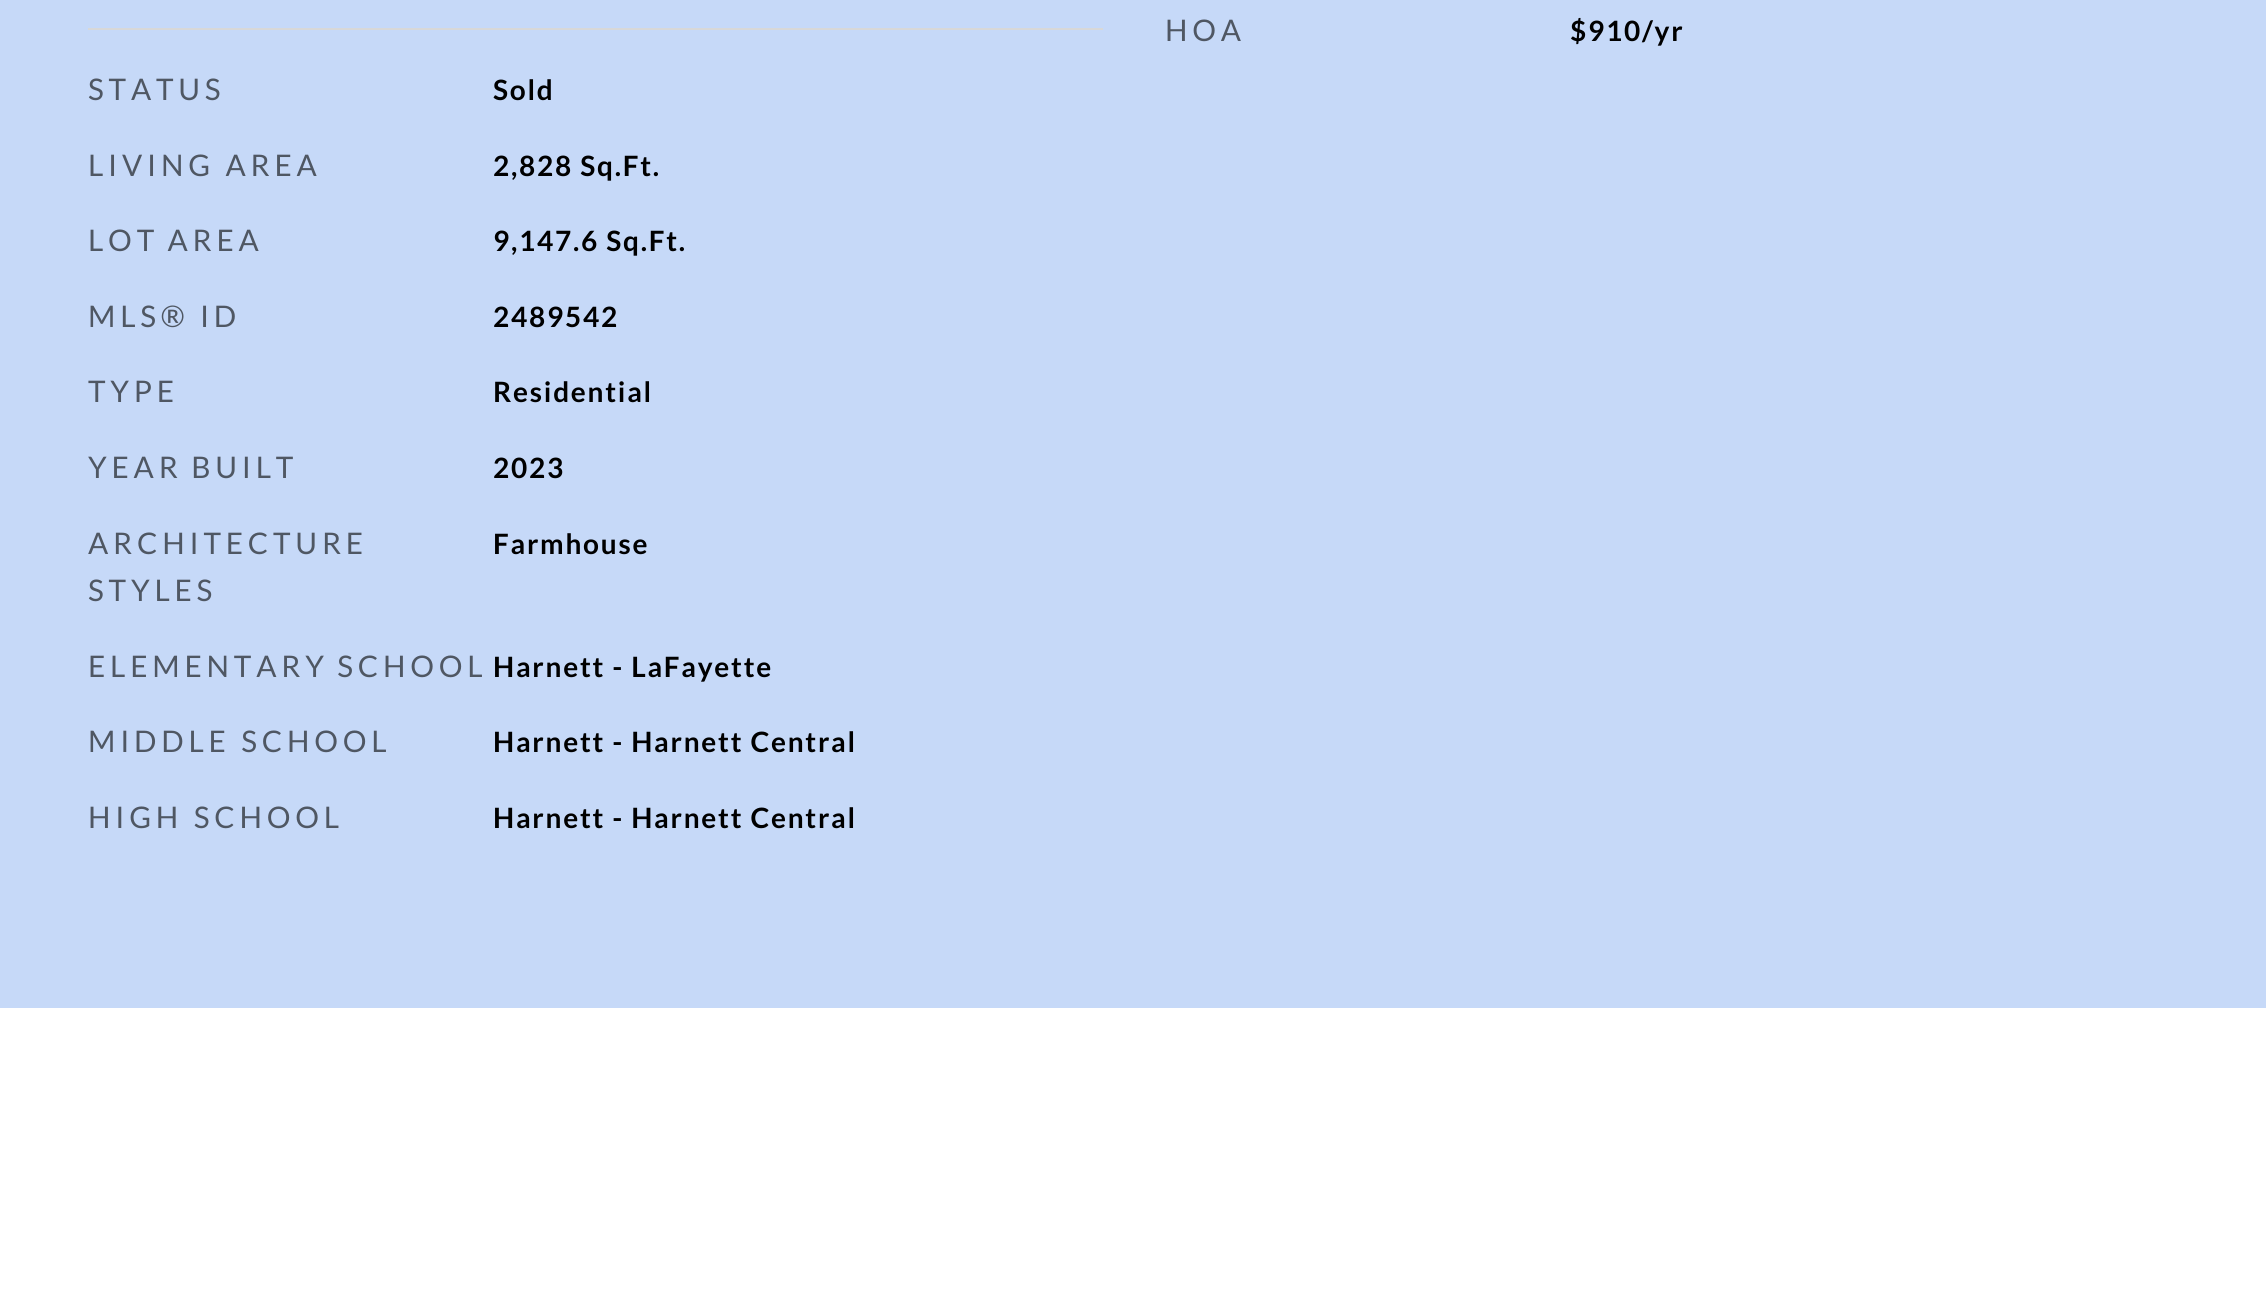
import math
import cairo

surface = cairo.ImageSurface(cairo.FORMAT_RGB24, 2266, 1302)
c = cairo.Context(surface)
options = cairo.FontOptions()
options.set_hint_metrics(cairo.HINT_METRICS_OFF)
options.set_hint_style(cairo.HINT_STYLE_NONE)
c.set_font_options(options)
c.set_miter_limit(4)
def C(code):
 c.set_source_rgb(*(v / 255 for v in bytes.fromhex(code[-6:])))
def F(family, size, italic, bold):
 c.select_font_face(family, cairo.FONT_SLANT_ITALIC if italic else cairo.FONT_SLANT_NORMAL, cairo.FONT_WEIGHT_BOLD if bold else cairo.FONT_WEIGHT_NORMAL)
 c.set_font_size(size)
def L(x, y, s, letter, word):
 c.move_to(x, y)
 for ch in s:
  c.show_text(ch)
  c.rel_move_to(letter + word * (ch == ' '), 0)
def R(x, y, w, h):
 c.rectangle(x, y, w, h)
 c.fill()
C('ffffff')
c.paint()
C('c6d9f8')
R(0,0,2266,1008)
F('Lato',29.75,0,0)
C('4f5763')
L(1165,41,'HOA',4.8,0)
F('Lato',28,0,1)
C('000000')
L(1570,41,'$910/yr',1.75,0)
C('d8d8d8')
R(88,28,1015,2)
F('Lato',29.75,0,0)
C('4f5763')
L(88,100,'STATUS',4.8,0)
F('Lato',28,0,1)
C('000000')
L(493,100,'Sold',1.75,0)
F('Lato',29.75,0,0)
C('4f5763')
L(88,176,'LIVING AREA',4.8,0)
F('Lato',28,0,1)
C('000000')
L(493,176,'2,828 Sq.Ft.',1.75,0)
F('Lato',29.75,0,0)
C('4f5763')
L(88,251,'LOT AREA',4.8,-2)
F('Lato',28,0,1)
C('000000')
L(493,251,'9,147.6 Sq.Ft.',1.75,0)
F('Lato',29.75,0,0)
C('4f5763')
L(88,327,'MLS® ID',4.8,0)
F('Lato',28,0,1)
C('000000')
L(493,327,'2489542',1.75,0)
F('Lato',29.75,0,0)
C('4f5763')
L(88,402,'TYPE',4.8,0)
F('Lato',28,0,1)
C('000000')
L(493,402,'Residential',1.75,0)
F('Lato',29.75,0,0)
C('4f5763')
L(88,478,'YEAR BUILT',4.8,-2)
F('Lato',28,0,1)
C('000000')
L(493,478,'2023',1.75,0)
F('Lato',29.75,0,0)
C('4f5763')
L(88,554,'ARCHITECTURE',4.8,0)
L(88,601,'STYLES',4.8,0)
F('Lato',28,0,1)
C('000000')
L(493,554,'Farmhouse',1.75,0)
F('Lato',29.75,0,0)
C('4f5763')
L(88,677,'ELEMENTARY SCHOOL',4.8,-2)
F('Lato',28,0,1)
C('000000')
L(493,677,'Harnett - LaFayette',1.75,0)
F('Lato',29.75,0,0)
C('4f5763')
L(88,752,'MIDDLE SCHOOL',4.8,0)
F('Lato',28,0,1)
C('000000')
L(493,752,'Harnett - Harnett Central',1.75,0)
F('Lato',29.75,0,0)
C('4f5763')
L(88,828,'HIGH SCHOOL',4.8,0)
F('Lato',28,0,1)
C('000000')
L(493,828,'Harnett - Harnett Central',1.75,0)
surface.write_to_png('o.png')
